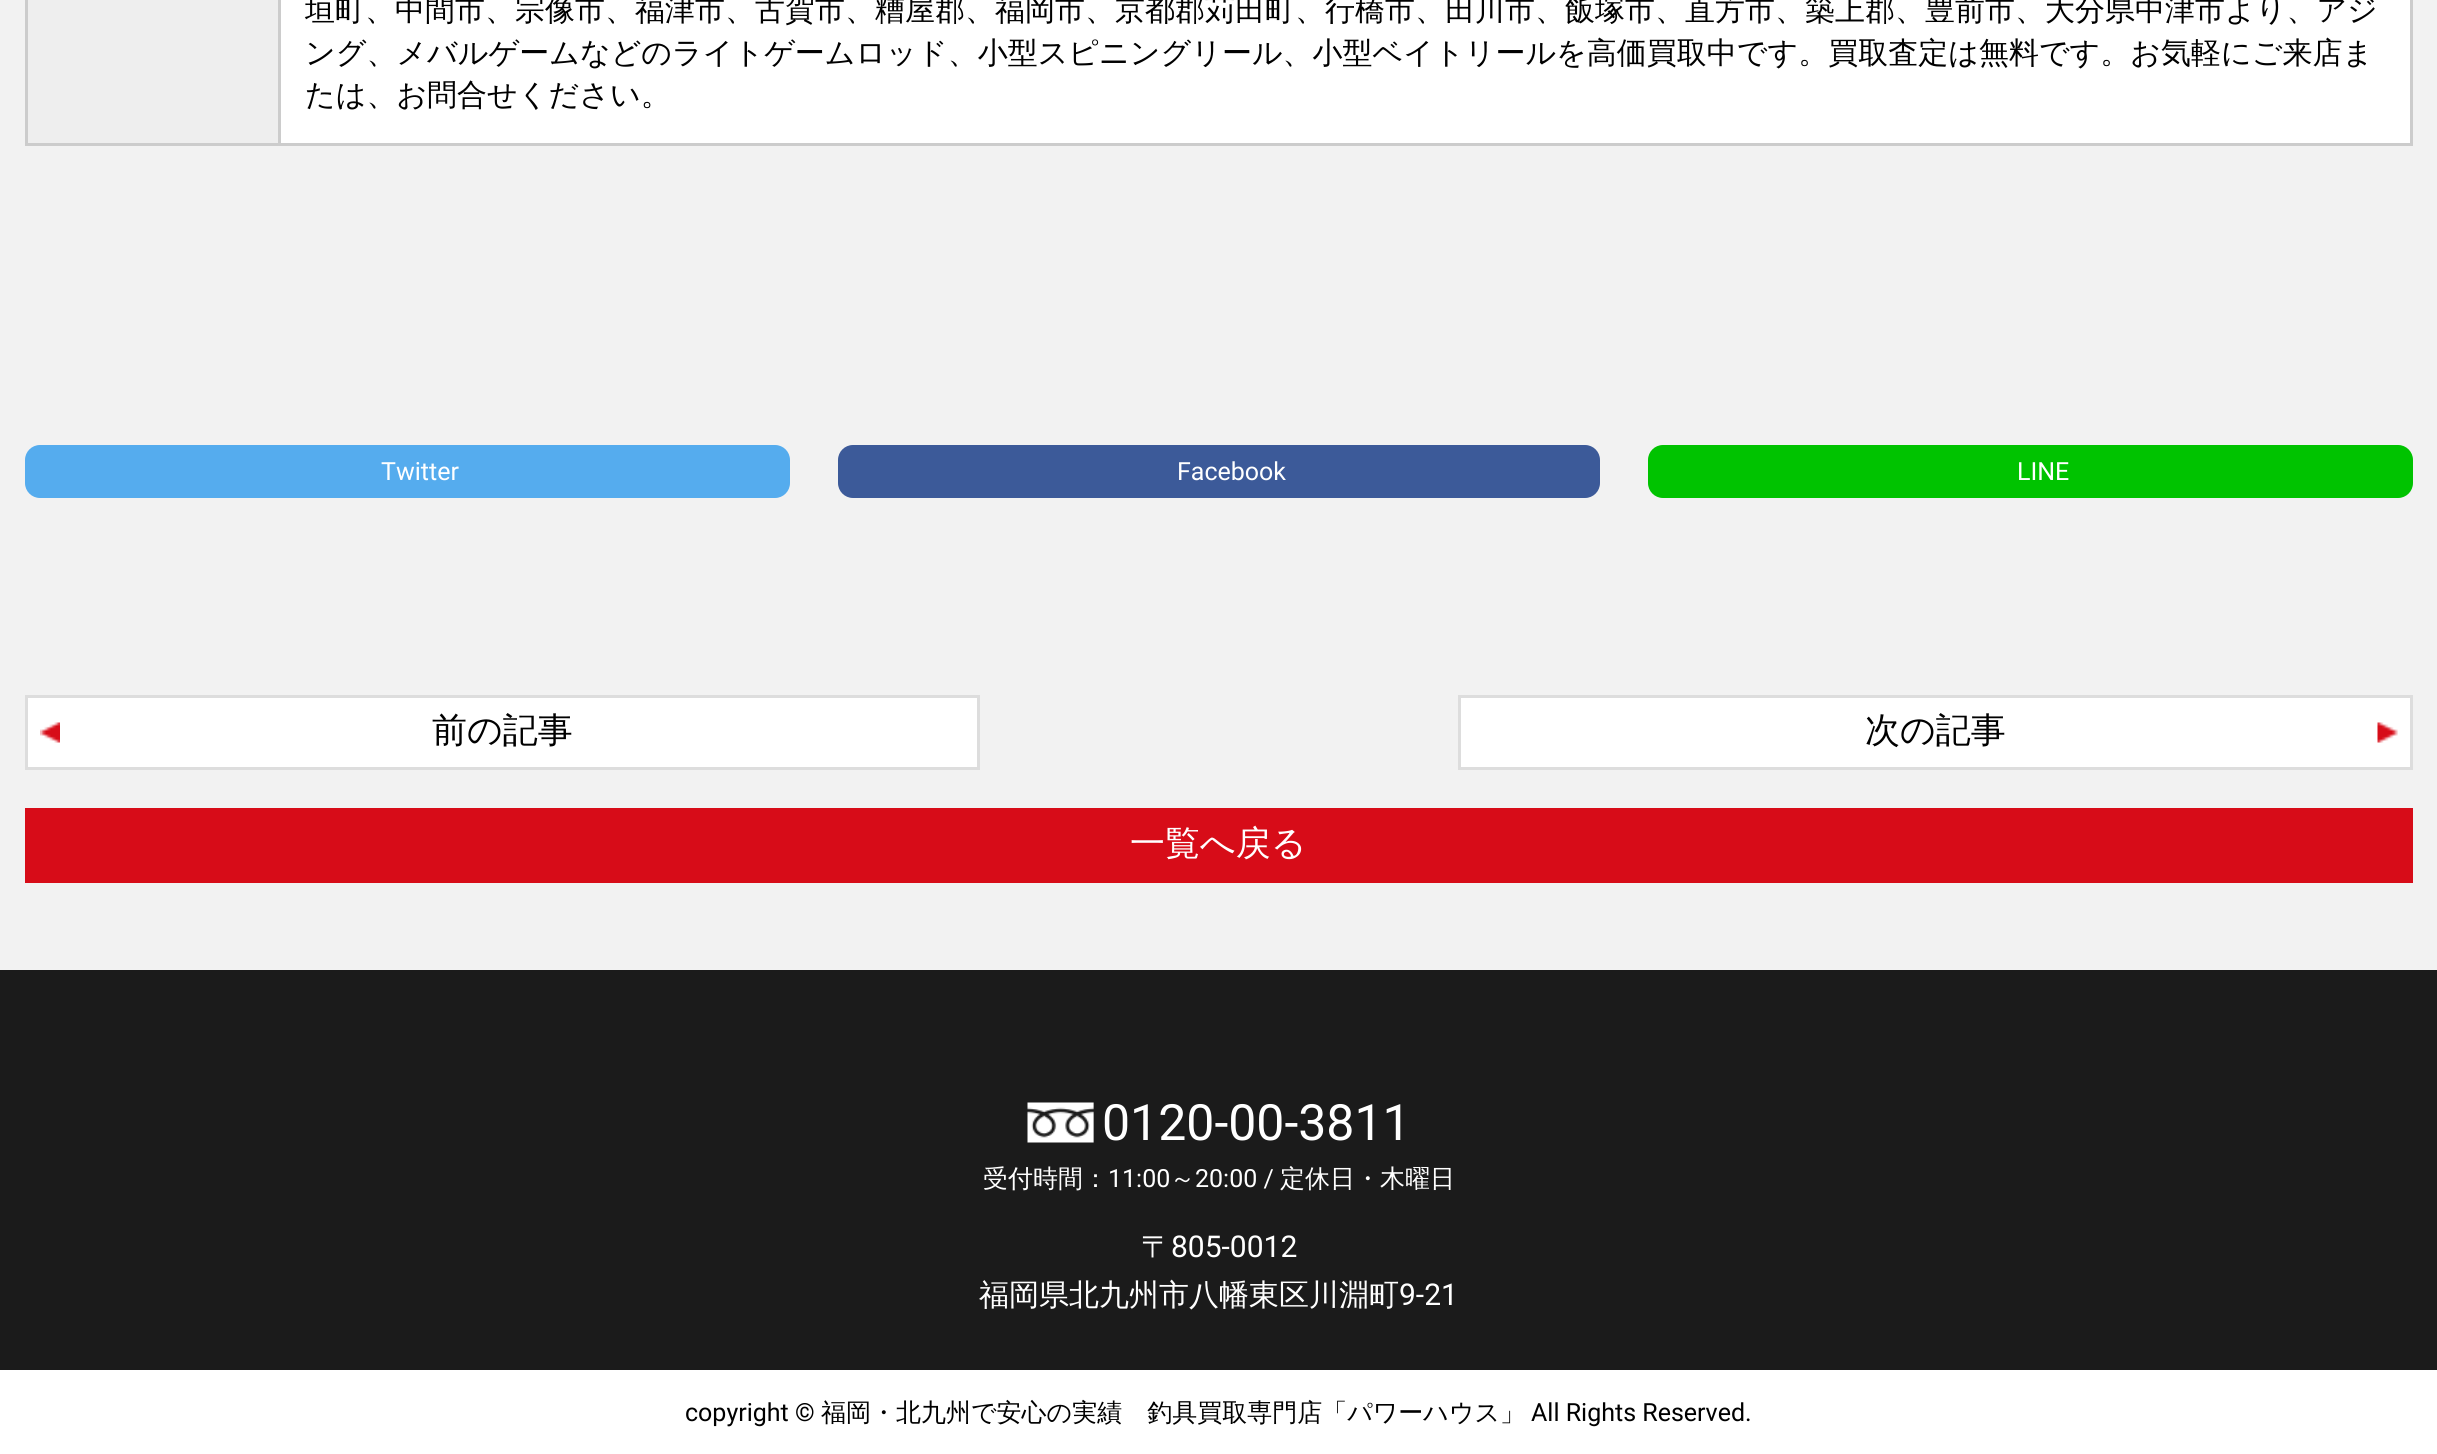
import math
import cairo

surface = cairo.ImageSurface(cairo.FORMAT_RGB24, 2437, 1454)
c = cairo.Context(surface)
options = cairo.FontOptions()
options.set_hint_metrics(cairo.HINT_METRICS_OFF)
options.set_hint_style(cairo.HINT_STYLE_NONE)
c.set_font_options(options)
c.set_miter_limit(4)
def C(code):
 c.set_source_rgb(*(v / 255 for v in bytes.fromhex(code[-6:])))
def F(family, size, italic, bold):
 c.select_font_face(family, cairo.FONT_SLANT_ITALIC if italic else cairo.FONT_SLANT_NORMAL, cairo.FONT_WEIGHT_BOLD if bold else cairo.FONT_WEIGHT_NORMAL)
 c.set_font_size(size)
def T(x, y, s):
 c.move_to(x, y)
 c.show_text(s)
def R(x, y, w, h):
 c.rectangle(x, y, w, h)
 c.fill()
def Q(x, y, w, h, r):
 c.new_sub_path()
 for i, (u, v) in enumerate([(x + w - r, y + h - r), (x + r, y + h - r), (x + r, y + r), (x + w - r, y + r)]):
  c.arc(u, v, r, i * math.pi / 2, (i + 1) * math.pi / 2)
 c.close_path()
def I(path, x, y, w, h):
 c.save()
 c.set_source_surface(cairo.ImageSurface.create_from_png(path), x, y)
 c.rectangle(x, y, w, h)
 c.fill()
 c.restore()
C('f2f2f2')
c.paint()
C('eeeeee')
R(28,0,250,143)
C('cccccc')
R(2410,0,3,145)
R(278,143,2135,3)
R(278,0,3,145)
R(25,143,255,3)
R(25,0,3,145)
C('ffffff')
R(281,0,2129,143)
F('WenQuanYi Zen Hei Medium',30,0,0)
C('000000')
T(305,20,'垣町、中間市、宗像市、福津市、古賀市、糟屋郡、福岡市、京都郡苅田町、行橋市、田川市、飯塚市、直方市、築上郡、豊前市、大分県中津市より、アジ')
T(305,63,'ング、メバルゲームなどのライトゲームロッド、小型スピニングリール、小型ベイトリールを高価買取中です。買取査定は無料です。お気軽にご来店ま')
T(305,105,'たは、お問合せください。')
C('55acee')
Q(25,445,765,53,15)
c.fill()
F('Roboto',25,0,0)
C('ffffff')
T(381,480,'Twitter')
C('3c5a99')
Q(838,445,762,53,15)
c.fill()
C('ffffff')
T(1177,480,'Facebook')
C('00c300')
Q(1648,445,765,53,15)
c.fill()
C('ffffff')
T(2017,480,'LINE')
R(28,698,949,69)
I('1.png',40,722,20,21)
c.rectangle(26.5,696.5,952,72)
C('dddddd')
c.set_line_width(3)
c.stroke()
F('WenQuanYi Zen Hei Medium',35,0,0)
C('000000')
T(432,742,'前の記事')
C('ffffff')
R(1461,698,949,69)
I('2.png',2377,722,21,21)
c.rectangle(1459.5,696.5,952,72)
C('dddddd')
c.stroke()
C('000000')
T(1865,742,'次の記事')
C('d70c18')
R(25,808,2388,75)
C('ffffff')
T(1130,855,'一覧へ戻る')
C('1b1b1b')
R(0,970,2437,400)
I('3.png',1027,1102,67,41)
F('Roboto',50,0,0)
C('ffffff')
T(1102,1140,'0120-00-3811')
F('WenQuanYi Zen Hei Medium',25,0,0)
T(983,1187,'受付時間：')
F('Roboto',25,0,0)
T(1108,1187,'11:00')
F('WenQuanYi Zen Hei Medium',25,0,0)
T(1170,1187,'～')
F('Roboto',25,0,0)
T(1195,1187,'20:00 /')
F('WenQuanYi Zen Hei Medium',25,0,0)
T(1280,1187,'定休日・木曜日')
F('WenQuanYi Zen Hei Medium',30,0,0)
T(1141,1257,'〒')
F('Roboto',30,0,0)
T(1171,1257,'805-0012')
F('WenQuanYi Zen Hei Medium',30,0,0)
T(979,1305,'福岡県北九州市八幡東区川淵町')
F('Roboto',30,0,0)
T(1399,1305,'9-21')
R(0,1370,2437,84)
F('Roboto',25,0,0)
C('000000')
T(685,1421,'copyright ©')
F('WenQuanYi Zen Hei Medium',25,0,0)
T(821,1421,'福岡・北九州で安心の実績　釣具買取専門店「パワーハウス」')
F('Roboto',25,0,0)
T(1531,1421,'All Rights Reserved.')
surface.write_to_png('o.png')
